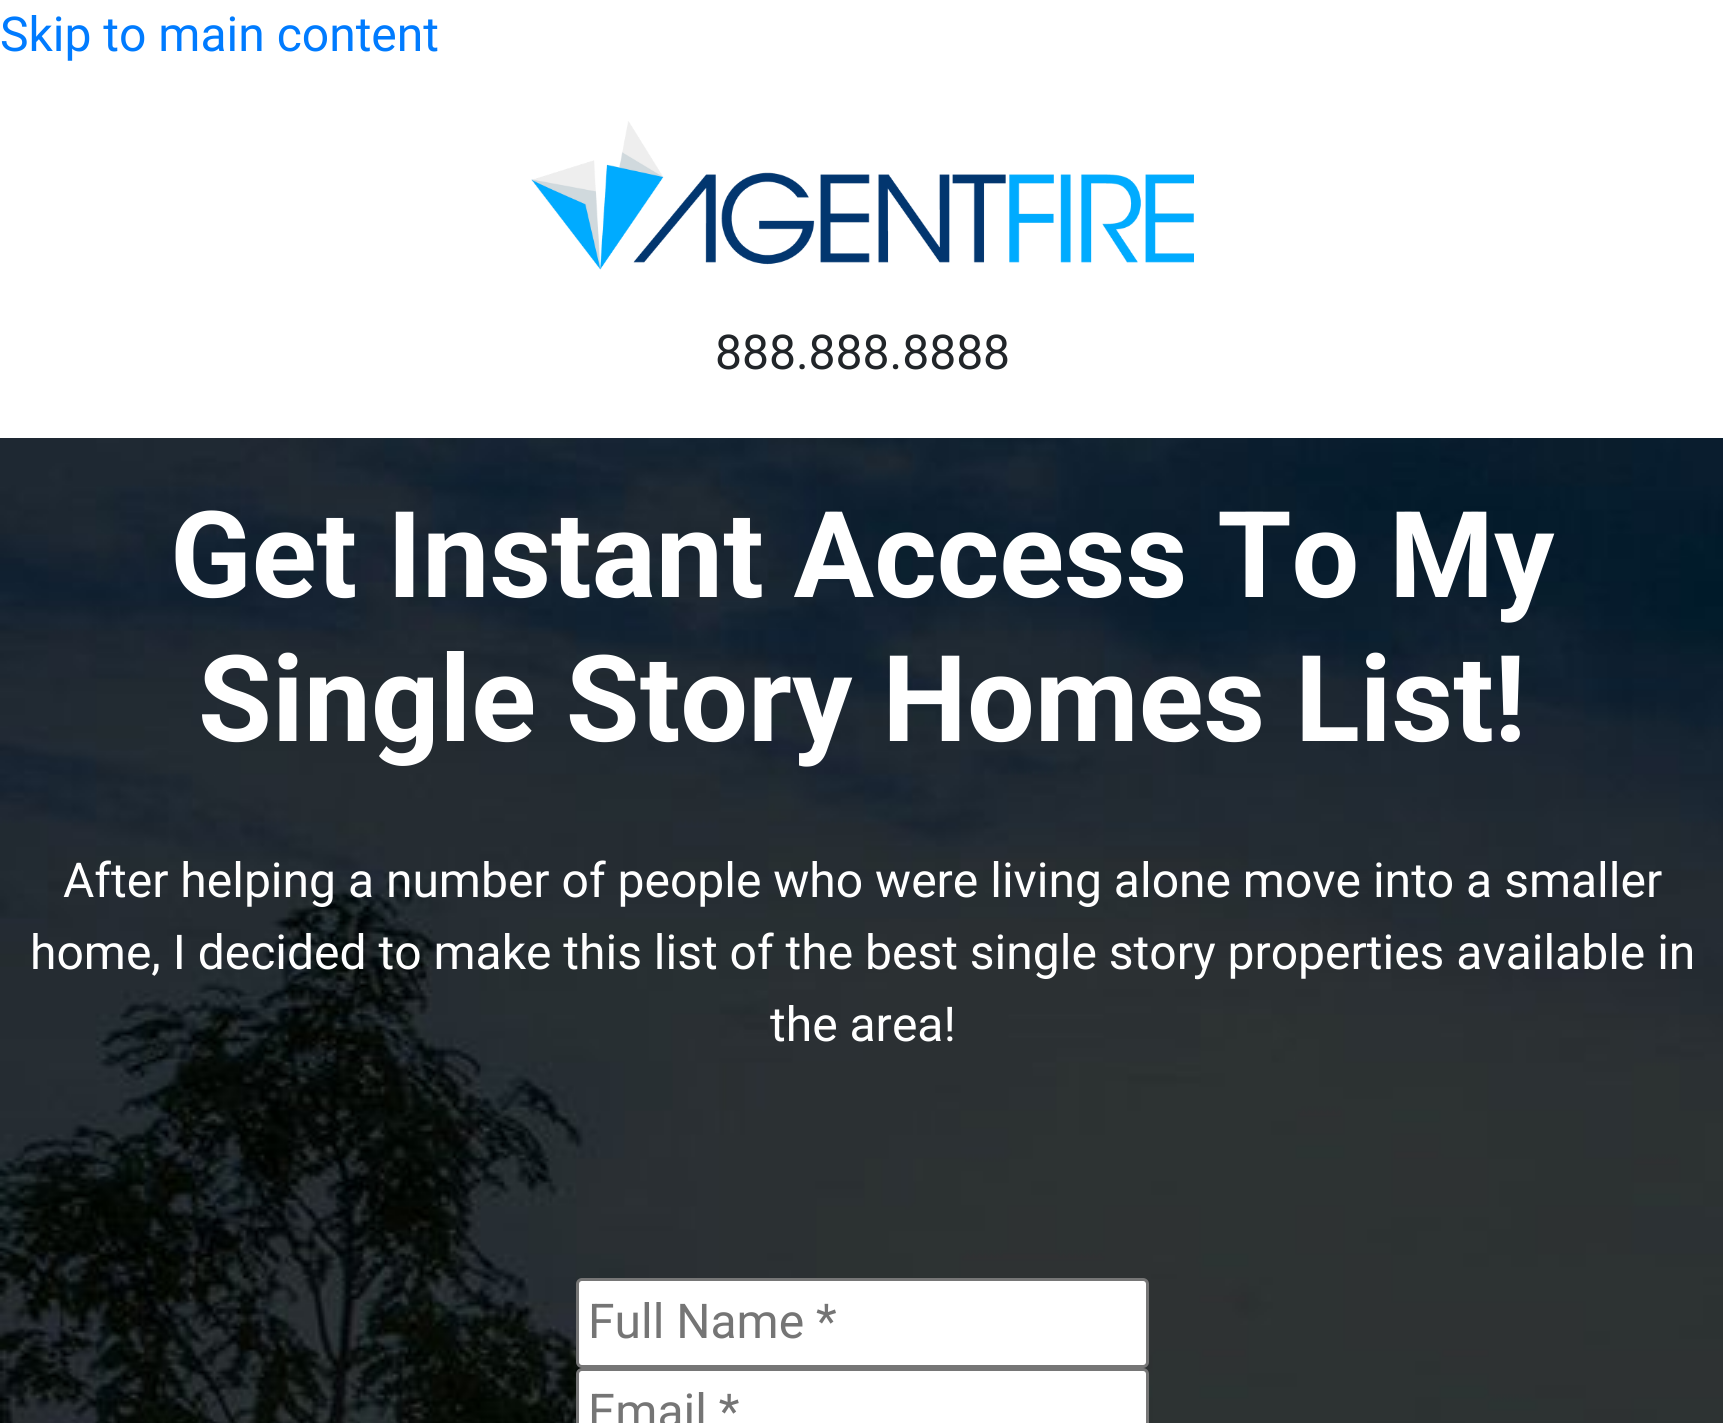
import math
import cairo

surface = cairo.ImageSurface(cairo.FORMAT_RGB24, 1723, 1423)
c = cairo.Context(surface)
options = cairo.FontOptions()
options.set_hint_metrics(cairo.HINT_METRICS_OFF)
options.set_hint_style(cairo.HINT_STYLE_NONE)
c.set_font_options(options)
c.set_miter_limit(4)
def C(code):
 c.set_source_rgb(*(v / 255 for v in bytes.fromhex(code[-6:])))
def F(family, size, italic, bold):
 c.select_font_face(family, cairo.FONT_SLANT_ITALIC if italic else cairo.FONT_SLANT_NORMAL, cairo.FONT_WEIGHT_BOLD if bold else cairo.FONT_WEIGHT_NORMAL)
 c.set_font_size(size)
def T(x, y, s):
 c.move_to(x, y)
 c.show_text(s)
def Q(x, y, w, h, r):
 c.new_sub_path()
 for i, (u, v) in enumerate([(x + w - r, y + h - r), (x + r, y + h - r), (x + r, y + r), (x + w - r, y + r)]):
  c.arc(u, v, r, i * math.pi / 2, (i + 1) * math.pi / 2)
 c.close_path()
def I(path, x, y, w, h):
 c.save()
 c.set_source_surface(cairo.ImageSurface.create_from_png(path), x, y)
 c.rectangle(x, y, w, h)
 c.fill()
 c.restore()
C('ffffff')
c.paint()
F('Roboto',48,0,0)
C('007bff')
T(0,51,'Skip to main content')
I('1.png',531,121,663,149)
C('212529')
T(715,369,'888.888.8888')
I('2.png',0,438,1723,985)
F('Roboto',120,0,1)
C('ffffff')
T(170,597,'Get Instant Access To My')
T(198,741,'Single Story Homes List!')
F('Roboto',48,0,0)
T(63,897,'After helping a number of people who were living alone move into a smaller')
T(30,969,'home, I decided to make this list of the best single story properties available in')
T(770,1041,'the area!')
Q(577.5,1279.5,570,87,4.5)
c.fill_preserve()
C('767676')
c.set_line_width(3)
c.stroke()
C('757575')
T(588,1338,'Full Name *')
C('ffffff')
Q(577.5,1369.5,570,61,4.5)
c.fill_preserve()
C('767676')
c.stroke()
C('757575')
T(588,1428,'Email *')
surface.write_to_png('o.png')
